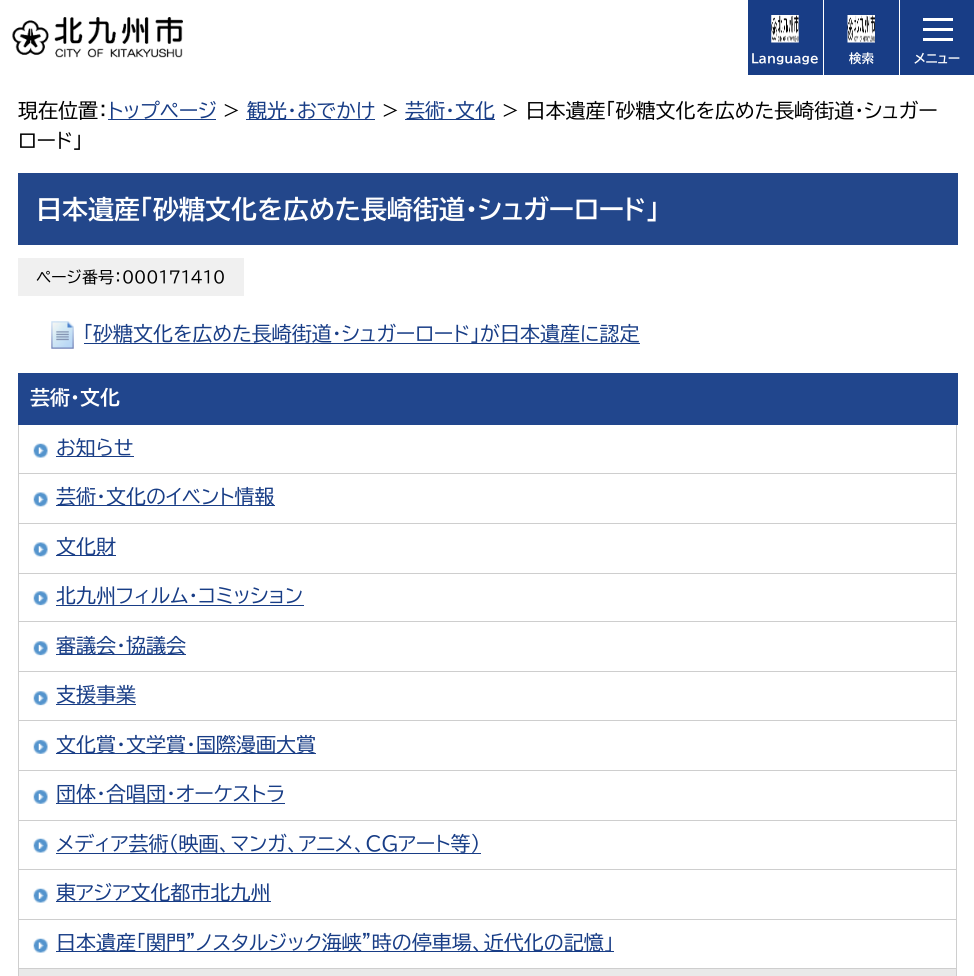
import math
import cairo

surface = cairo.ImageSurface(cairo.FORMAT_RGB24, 974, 976)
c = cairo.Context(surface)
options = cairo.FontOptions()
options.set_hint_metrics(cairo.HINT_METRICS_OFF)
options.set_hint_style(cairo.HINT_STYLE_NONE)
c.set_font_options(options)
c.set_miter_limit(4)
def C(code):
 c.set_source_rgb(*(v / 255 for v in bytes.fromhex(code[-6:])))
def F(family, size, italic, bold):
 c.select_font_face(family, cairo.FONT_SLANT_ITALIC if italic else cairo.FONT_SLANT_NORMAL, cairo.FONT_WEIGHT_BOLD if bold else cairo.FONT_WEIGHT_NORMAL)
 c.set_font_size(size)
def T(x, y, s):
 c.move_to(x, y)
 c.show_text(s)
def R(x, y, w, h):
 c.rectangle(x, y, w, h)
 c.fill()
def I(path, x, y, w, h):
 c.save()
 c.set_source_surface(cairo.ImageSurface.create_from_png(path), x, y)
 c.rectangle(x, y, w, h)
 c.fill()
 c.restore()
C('ffffff')
c.paint()
I('1.png',12,17,171,41)
C('183d86')
R(748,0,75,75)
I('2.png',771,15,28,28)
F('BIZ UDPGothic',12.5,0,1)
C('ffffff')
T(751,63,'Language')
C('183d86')
R(824,0,75,75)
I('3.png',847,15,28,28)
C('ffffff')
T(849,63,'検索')
C('183d86')
R(900,0,74,75)
C('ffffff')
R(923,18,30,3)
R(923,28,30,3)
R(923,38,30,3)
T(914,63,'メニュー')
F('BIZ UDPGothic',20,0,0)
C('000000')
T(18,118,'現在位置：')
C('183d86')
T(108,118,'トップページ')
R(108,119,108,1)
C('000000')
T(223,118,'>')
C('183d86')
R(246,119,129,1)
T(247,118,'観光・おでかけ')
C('000000')
T(382,118,'>')
C('183d86')
R(405,119,90,1)
T(405,118,'芸術・文化')
C('000000')
T(502,118,'> 日本遺産「砂糖文化を広めた長崎街道・シュガー')
T(18,148,'ロード」')
C('23478b')
R(18,173,940,72)
F('BIZ UDPGothic',26,0,1)
C('ffffff')
T(36,219,'日本遺産「砂糖文化を広めた長崎街道・シュガーロード」')
C('f0f0f0')
R(18,258,226,38)
F('BIZ UDPGothic',16,0,0)
C('000000')
T(36,283,'ページ番号：000171410')
I('4.png',51,321,23,28)
F('BIZ UDPGothic',20,0,0)
C('183d86')
T(83,341,'「砂糖文化を広めた長崎街道・シュガーロード」が日本遺産に認定')
R(84,343,556,1)
C('21468d')
R(18,373,940,52)
F('BIZ UDPGothic',20,0,1)
C('ffffff')
T(30,405,'芸術・文化')
C('cecece')
R(956,425,1,551)
R(18,473,938,1)
R(18,425,1,49)
I('5.png',33,443,15,15)
C('183d86')
R(56,456,78,1)
F('BIZ UDPGothic',20,0,0)
T(56,455,'お知らせ')
C('cecece')
R(18,523,938,1)
R(18,474,1,50)
I('6.png',33,492,15,15)
C('183d86')
R(56,505,219,1)
T(56,504,'芸術・文化のイベント情報')
C('cecece')
R(18,573,938,1)
R(18,524,1,50)
I('6.png',33,542,15,15)
C('183d86')
R(56,555,60,1)
T(56,554,'文化財')
C('cecece')
R(18,621,938,1)
R(18,574,1,49)
I('7.png',33,591,15,15)
C('183d86')
T(56,603,'北九州フィルム・コミッション')
R(56,605,248,1)
C('cecece')
R(18,671,938,1)
R(18,623,1,50)
I('7.png',33,641,15,15)
C('183d86')
R(56,654,130,1)
T(56,653,'審議会・協議会')
C('cecece')
R(18,720,938,1)
R(18,673,1,48)
I('7.png',33,691,15,15)
C('183d86')
T(56,702,'支援事業')
R(56,704,80,1)
C('cecece')
R(18,770,938,1)
R(18,721,1,50)
I('8.png',33,739,15,15)
C('183d86')
R(56,753,260,1)
T(56,752,'文化賞・文学賞・国際漫画大賞')
C('cecece')
R(18,820,938,1)
R(18,771,1,50)
I('8.png',33,789,15,15)
C('183d86')
T(56,801,'団体・合唱団・オーケストラ')
R(56,803,229,1)
C('cecece')
R(18,869,938,1)
R(18,821,1,49)
I('5.png',33,838,15,15)
C('183d86')
T(56,851,'メディア芸術（映画、マンガ、アニメ、CGアート等）')
R(56,853,425,1)
C('cecece')
R(18,919,938,1)
R(18,870,1,50)
I('5.png',33,888,15,15)
C('183d86')
R(56,901,215,1)
T(56,900,'東アジア文化都市北九州')
C('cecece')
R(18,968,938,1)
R(18,920,1,49)
I('5.png',33,938,15,15)
C('183d86')
R(56,951,558,1)
T(56,950,'日本遺産「関門”ノスタルジック海峡”時の停車場、近代化の記憶」')
C('e9e9e9')
R(18,969,938,7)
C('cecece')
R(18,969,1,7)
surface.write_to_png('o.png')
